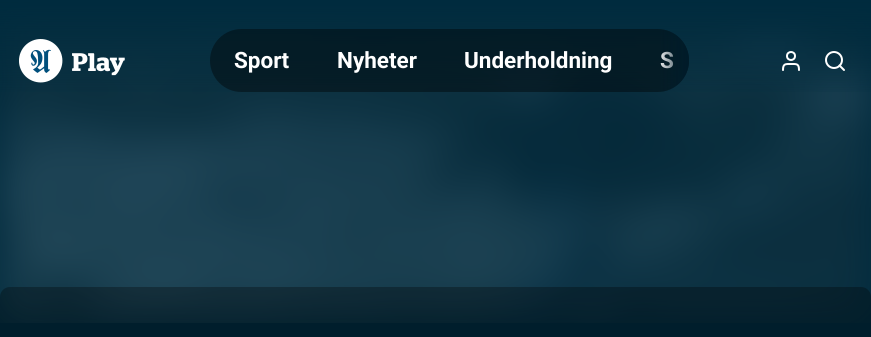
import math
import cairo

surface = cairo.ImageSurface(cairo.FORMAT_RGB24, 871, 337)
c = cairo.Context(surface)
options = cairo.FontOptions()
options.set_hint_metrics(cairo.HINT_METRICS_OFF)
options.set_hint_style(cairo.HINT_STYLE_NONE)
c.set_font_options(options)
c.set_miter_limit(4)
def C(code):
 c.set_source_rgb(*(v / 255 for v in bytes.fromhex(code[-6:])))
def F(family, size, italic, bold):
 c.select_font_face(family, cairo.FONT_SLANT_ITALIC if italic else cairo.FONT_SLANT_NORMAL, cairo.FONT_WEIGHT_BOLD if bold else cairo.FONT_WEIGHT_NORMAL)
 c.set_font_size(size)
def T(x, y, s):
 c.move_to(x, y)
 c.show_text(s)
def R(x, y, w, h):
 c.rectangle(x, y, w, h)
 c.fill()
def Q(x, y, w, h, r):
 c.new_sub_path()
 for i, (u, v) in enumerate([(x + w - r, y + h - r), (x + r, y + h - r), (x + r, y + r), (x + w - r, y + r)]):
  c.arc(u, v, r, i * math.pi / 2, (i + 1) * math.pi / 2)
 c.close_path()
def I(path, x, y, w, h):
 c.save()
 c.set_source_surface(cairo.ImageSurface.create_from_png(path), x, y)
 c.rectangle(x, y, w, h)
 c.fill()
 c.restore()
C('002b3e')
c.paint()
I('1.png',0,1,871,322)
c.set_source_rgba(0,0,0,0.3)
Q(0,287,871,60,10)
c.fill()
gradient = cairo.LinearGradient(436,0,436,105)
gradient.add_color_stop_rgba(0,0,0.169,0.243,1)
gradient.add_color_stop_rgba(1,0,0.169,0.243,0)
c.set_source(gradient)
R(0,1,871,91)
I('2.png',19,39,106,44)
c.set_source_rgba(0,0,0,0.4)
Q(210,29,479,63,31.5)
c.fill()
F('Roboto',22.5,0,1)
C('ffffff')
T(660,68,'S')
gradient = cairo.LinearGradient(689,61,657,61)
gradient.add_color_stop_rgba(0,0,0.106,0.161,1)
gradient.add_color_stop_rgba(1,0,0.106,0.161,0)
c.set_source(gradient)
c.new_path()
c.move_to(657,29)
c.line_to(657.5,29)
c.curve_to(675,29,689,43,689,60.5)
c.curve_to(689,78,675,92,657.5,92)
c.line_to(657,92)
c.close_path()
c.fill()
C('ffffff')
T(234,68,'Sport')
T(337,68,'Nyheter')
T(464,68,'Underholdning')
c.new_path()
c.move_to(799,70)
c.curve_to(799,63.5,796.5,64,791,64)
c.curve_to(785.5,64,783,63.5,783,70)
c.set_line_cap(cairo.LINE_CAP_ROUND)
c.set_line_join(cairo.LINE_JOIN_ROUND)
c.stroke()
c.arc(791,56,4,0,2 * math.pi)
c.set_line_cap(cairo.LINE_CAP_BUTT)
c.set_line_join(cairo.LINE_JOIN_MITER)
c.stroke()
c.arc(834,60,8,0,2 * math.pi)
c.stroke()
c.new_path()
c.move_to(844,70)
c.line_to(839.5,65.5)
c.set_line_cap(cairo.LINE_CAP_ROUND)
c.set_line_join(cairo.LINE_JOIN_ROUND)
c.stroke()
surface.write_to_png('o.png')
